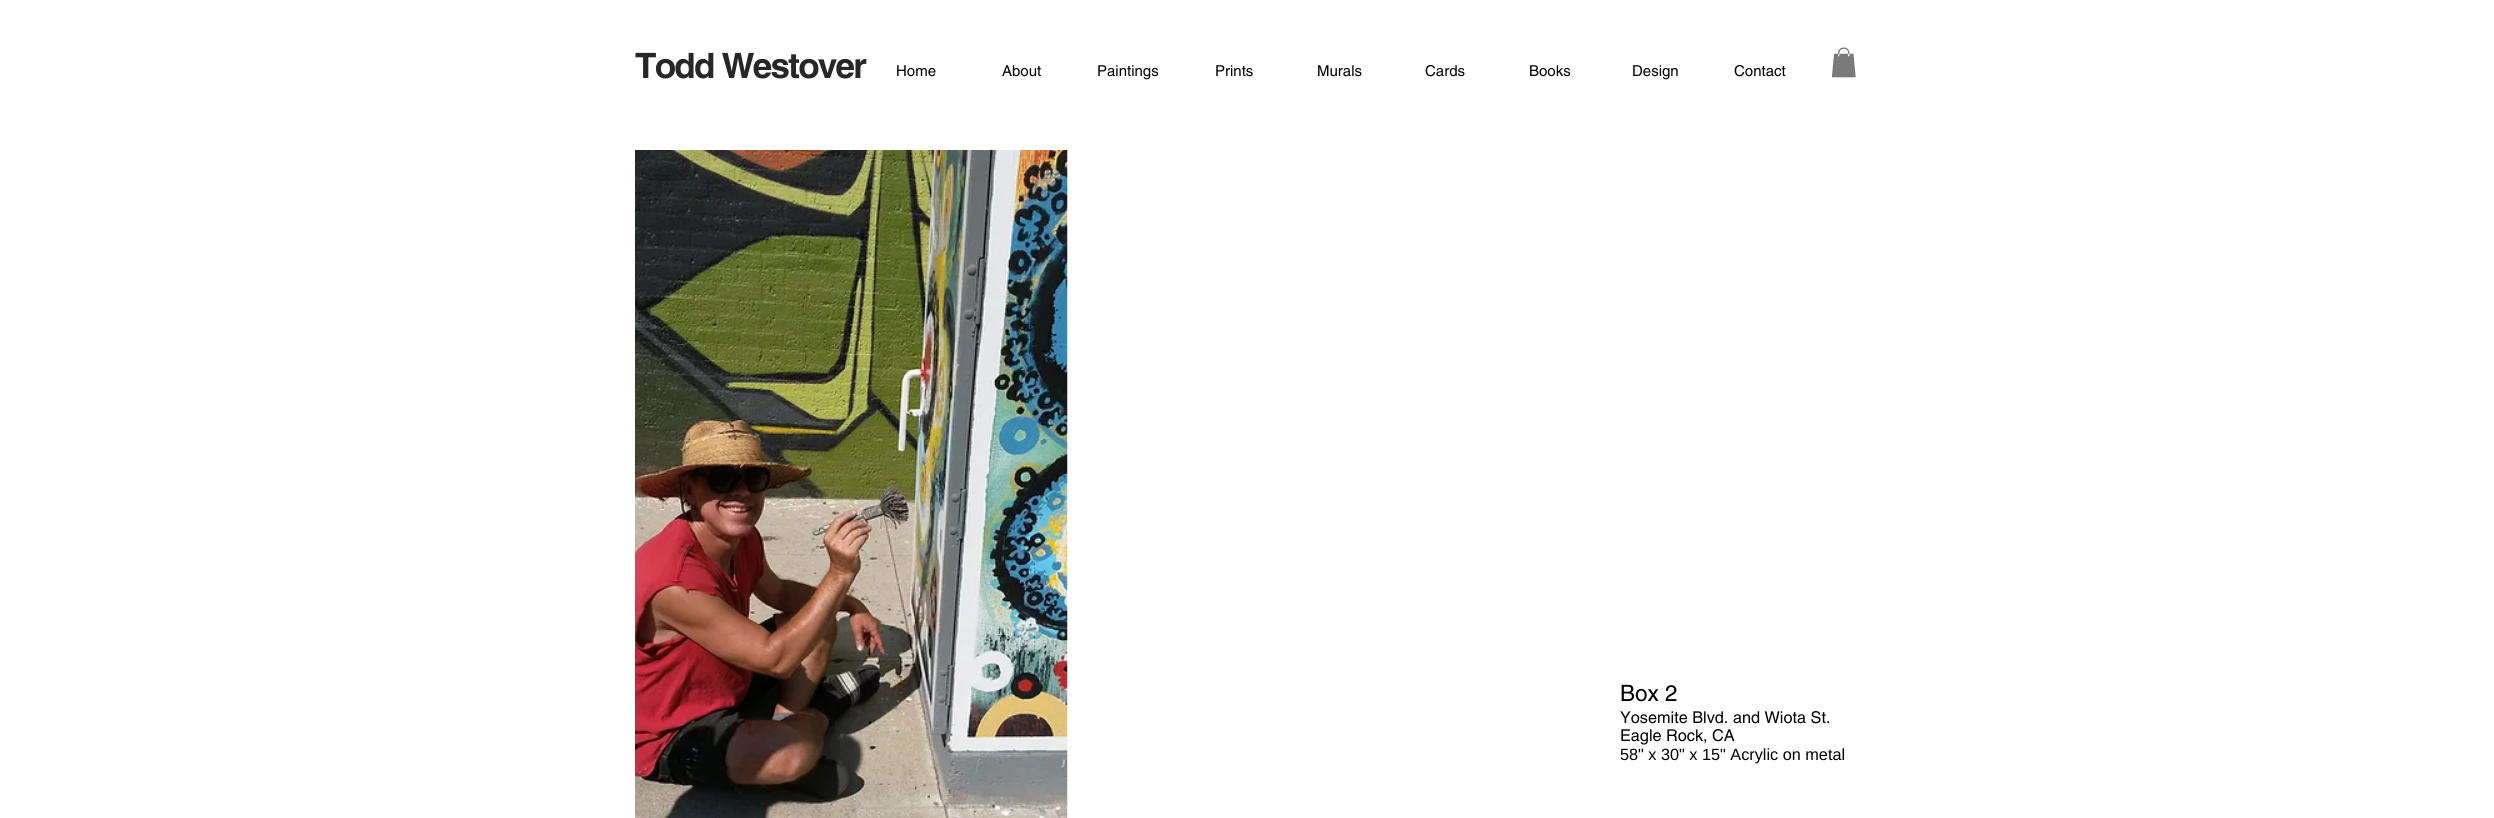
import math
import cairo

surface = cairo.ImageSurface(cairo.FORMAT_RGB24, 2494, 818)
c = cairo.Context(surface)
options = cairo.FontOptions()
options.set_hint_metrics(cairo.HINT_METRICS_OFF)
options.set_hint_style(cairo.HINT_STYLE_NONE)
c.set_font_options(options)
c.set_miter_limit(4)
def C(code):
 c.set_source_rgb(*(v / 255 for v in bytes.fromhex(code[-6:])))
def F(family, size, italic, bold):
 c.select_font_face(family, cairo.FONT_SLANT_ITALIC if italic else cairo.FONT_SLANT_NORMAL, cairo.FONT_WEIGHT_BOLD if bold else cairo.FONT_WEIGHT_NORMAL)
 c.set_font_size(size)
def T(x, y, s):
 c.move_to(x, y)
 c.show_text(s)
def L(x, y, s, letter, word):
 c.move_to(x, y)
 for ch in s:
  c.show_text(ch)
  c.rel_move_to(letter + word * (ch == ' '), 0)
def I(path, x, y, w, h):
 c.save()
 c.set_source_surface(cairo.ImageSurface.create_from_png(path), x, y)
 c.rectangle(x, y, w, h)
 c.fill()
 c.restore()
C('ffffff')
c.paint()
F('helvetica',35,0,1)
C('272727')
L(635,78,'Todd Westover',-1.75,0)
F('helvetica',15,0,0)
C('000000')
T(896,76,'Home')
T(1002,76,'About')
T(1097,76,'Paintings')
T(1215,76,'Prints')
T(1317,76,'Murals')
T(1425,76,'Cards')
T(1529,76,'Books')
T(1632,76,'Design')
T(1734,76,'Contact')
I('1.png',1831,47,25,31)
I('2.png',635,150,433,668)
F('helvetica',22.5,0,0)
T(1620,701,'Box 2')
F('helvetica',16.25,0,0)
T(1620,723,'Yosemite Blvd. and Wiota St.')
T(1620,741,'Eagle Rock, CA')
F('Liberation Sans',16.25,0,0)
T(1620,760,'58" x 30" x 15" Acrylic on metal')
surface.write_to_png('o.png')
